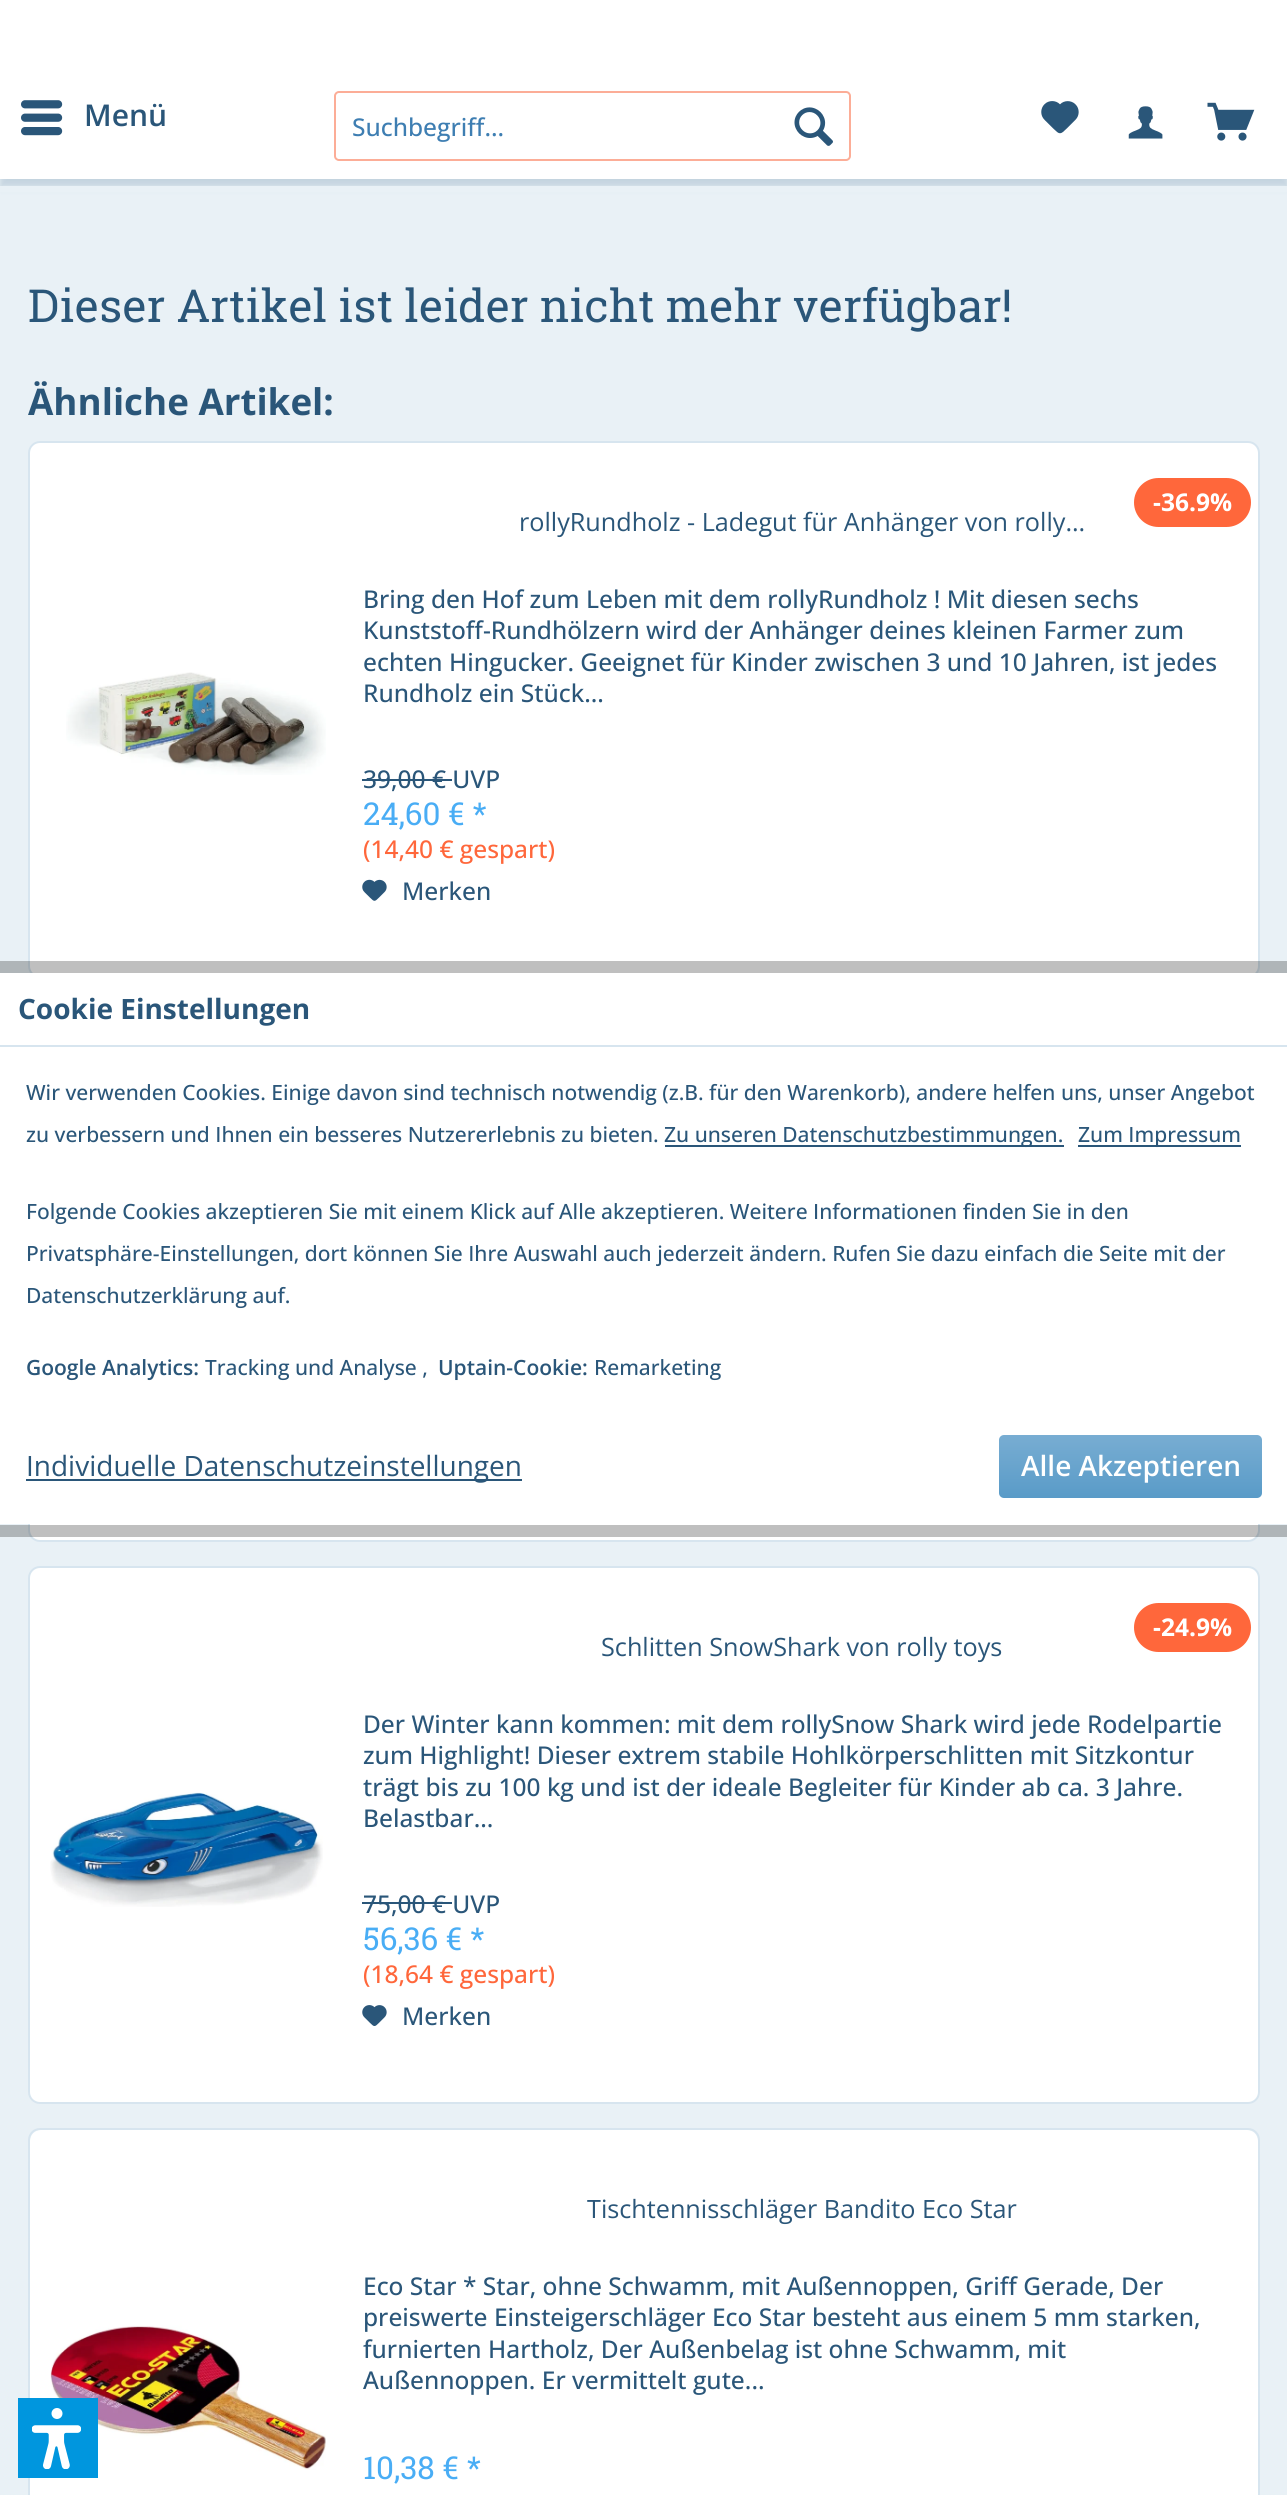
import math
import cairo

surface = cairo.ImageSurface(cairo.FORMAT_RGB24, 1287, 2495)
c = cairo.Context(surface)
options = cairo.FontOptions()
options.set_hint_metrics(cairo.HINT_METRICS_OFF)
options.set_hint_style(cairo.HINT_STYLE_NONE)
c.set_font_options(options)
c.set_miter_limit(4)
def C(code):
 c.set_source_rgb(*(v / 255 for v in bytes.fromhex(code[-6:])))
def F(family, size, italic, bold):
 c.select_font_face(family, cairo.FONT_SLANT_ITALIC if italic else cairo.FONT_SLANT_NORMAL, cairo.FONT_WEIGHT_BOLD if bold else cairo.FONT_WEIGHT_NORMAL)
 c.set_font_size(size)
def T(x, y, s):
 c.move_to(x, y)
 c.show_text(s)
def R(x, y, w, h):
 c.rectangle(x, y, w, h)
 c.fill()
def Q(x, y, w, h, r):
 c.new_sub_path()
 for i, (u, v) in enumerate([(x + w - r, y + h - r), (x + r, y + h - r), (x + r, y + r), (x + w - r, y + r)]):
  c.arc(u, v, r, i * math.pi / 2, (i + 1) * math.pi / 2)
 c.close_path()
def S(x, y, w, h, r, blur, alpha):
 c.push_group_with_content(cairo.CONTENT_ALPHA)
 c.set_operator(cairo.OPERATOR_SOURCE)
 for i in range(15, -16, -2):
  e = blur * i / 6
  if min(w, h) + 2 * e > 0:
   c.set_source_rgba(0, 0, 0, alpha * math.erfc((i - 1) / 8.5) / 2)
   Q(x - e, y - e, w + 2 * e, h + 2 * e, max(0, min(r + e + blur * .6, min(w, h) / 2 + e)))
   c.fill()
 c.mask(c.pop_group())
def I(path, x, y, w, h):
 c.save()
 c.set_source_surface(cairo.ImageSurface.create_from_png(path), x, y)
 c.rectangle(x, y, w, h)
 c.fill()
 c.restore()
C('e9f1f6')
c.paint()
C('305d80')
S(0,9,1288,178,0,3.5,.2)
C('ffffff')
R(0,0,1287,179)
I('1.png',21,100,42,36)
F('Open Sans SemiBold',30,0,0)
C('2a5679')
T(84,126,'Menü')
Q(335,92,515,68,4)
C('fcad97')
c.stroke()
F('Open Sans Medium',24.5,0,0)
C('3e7eb2')
T(352,136,'Suchbegriff...')
I('2.png',794,107,39,39)
I('3.png',1041,101,38,33)
I('4.png',1128,106,35,33)
I('5.png',1207,102,48,39)
C('e9f1f6')
R(0,186,1287,6)
F('Roboto Slab',45.5,0,0)
C('2a5679')
T(28,322,'Dieser Artikel ist leider nicht mehr verfügbar!')
F('Open Sans',36.75,0,1)
T(28,415,'Ähnliche Artikel:')
C('ffffff')
Q(29,442,1230,535,11)
c.fill_preserve()
C('d7e5ef')
c.stroke()
C('ff673b')
Q(1134,478,117,49,24.5)
c.fill()
F('Open Sans',24.5,0,1)
C('ffffff')
T(1153,511,'-36.9%')
F('Open Sans',25.2,0,0)
C('2a5679')
T(519,531,'rollyRundholz - Ladegut für Anhänger von rolly...')
F('Open Sans Medium',24.5,0,0)
T(363,608,'Bring den Hof zum Leben mit dem rollyRundholz ! Mit diesen sechs')
T(363,639,'Kunststoff-Rundhölzern wird der Anhänger deines kleinen Farmer zum')
T(363,671,'echten Hingucker. Geeignet für Kinder zwischen 3 und 10 Jahren, ist jedes')
T(363,702,'Rundholz ein Stück...')
I('6.png',66,672,260,103)
T(363,788,'39,00 € UVP')
R(362,779,90,2)
F('Roboto Slab',31.5,0,0)
C('49adf5')
T(363,825,'24,60 € *')
F('Open Sans Medium',24.5,0,0)
C('ff673b')
T(363,858,'(14,40 € gespart)')
I('7.png',362,879,25,22)
C('2a5679')
T(402,900,'Merken')
C('ffffff')
Q(29,1006,1230,535,11)
c.fill_preserve()
C('d7e5ef')
c.stroke()
C('ffffff')
Q(29,1567,1230,536,11)
c.fill_preserve()
C('d7e5ef')
c.stroke()
C('ff673b')
Q(1134,1603,117,49,24.5)
c.fill()
F('Open Sans',24.5,0,1)
C('ffffff')
T(1153,1636,'-24.9%')
F('Open Sans',25.2,0,0)
C('2a5679')
T(601,1656,'Schlitten SnowShark von rolly toys')
F('Open Sans Medium',24.5,0,0)
T(363,1733,'Der Winter kann kommen: mit dem rollySnow Shark wird jede Rodelpartie')
T(363,1764,'zum Highlight! Dieser extrem stabile Hohlkörperschlitten mit Sitzkontur')
T(363,1796,'trägt bis zu 100 kg und ist der ideale Begleiter für Kinder ab ca. 3 Jahre.')
T(363,1827,'Belastbar...')
I('8.png',50,1792,273,115)
T(363,1913,'75,00 € UVP')
R(362,1902,90,2)
F('Roboto Slab',31.5,0,0)
C('49adf5')
T(363,1950,'56,36 € *')
F('Open Sans Medium',24.5,0,0)
C('ff673b')
T(363,1983,'(18,64 € gespart)')
I('9.png',362,2005,25,21)
C('2a5679')
T(402,2025,'Merken')
C('ffffff')
Q(30,2130,1228,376,11)
c.fill()
Q(29,2129,1230,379,11)
C('d7e5ef')
c.stroke()
F('Open Sans',25.2,0,0)
C('2a5679')
T(587,2218,'Tischtennisschläger Bandito Eco Star')
I('10.png',50,2325,276,145)
F('Open Sans Medium',24.5,0,0)
T(363,2295,'Eco Star * Star, ohne Schwamm, mit Außennoppen, Griff Gerade, Der')
T(363,2326,'preiswerte Einsteigerschläger Eco Star besteht aus einem 5 mm starken,')
T(363,2358,'furnierten Hartholz, Der Außenbelag ist ohne Schwamm, mit')
T(363,2389,'Außennoppen. Er vermittelt gute...')
F('Roboto Slab',31.5,0,0)
C('49adf5')
T(363,2479,'10,38 € *')
c.rectangle(-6,967,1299,564)
c.set_source_rgba(0,0,0,0.25)
c.set_line_width(12)
c.stroke()
C('ffffff')
R(0,973,1287,551)
C('d7e5ef')
R(0,1045,1287,2)
F('Open Sans',28,0,1)
C('2a5679')
T(18,1019,'Cookie Einstellungen')
F('Open Sans Medium',21,0,0)
T(26,1100,'Wir verwenden Cookies. Einige davon sind technisch notwendig (z.B. für den Warenkorb), andere helfen uns, unser Angebot')
T(26,1142,'zu verbessern und Ihnen ein besseres Nutzererlebnis zu bieten.')
R(665,1145,399,2)
T(664,1142,'Zu unseren Datenschutzbestimmungen.')
R(1078,1145,163,2)
T(1078,1142,'Zum Impressum')
T(26,1219,'Folgende Cookies akzeptieren Sie mit einem Klick auf Alle akzeptieren. Weitere Informationen finden Sie in den')
T(26,1261,'Privatsphäre-Einstellungen, dort können Sie Ihre Auswahl auch jederzeit ändern. Rufen Sie dazu einfach die Seite mit der')
T(26,1303,'Datenschutzerklärung auf.')
F('Open Sans SemiBold',21,0,0)
T(26,1375,'Google Analytics:')
F('Open Sans Medium',21,0,0)
T(205,1375,'Tracking und Analyse ,')
F('Open Sans SemiBold',21,0,0)
T(438,1375,'Uptain-Cookie:')
F('Open Sans Medium',21,0,0)
T(594,1375,'Remarketing')
R(26,1479,496,2)
F('Open Sans',28,0,0)
T(26,1476,'Individuelle Datenschutzeinstellungen')
gradient = cairo.LinearGradient(1131,1435,1131,1498)
gradient.add_color_stop_rgba(0,0.471,0.678,0.824,1)
gradient.add_color_stop_rgba(1,0.349,0.608,0.784,1)
c.set_source(gradient)
Q(999,1435,263,63,5)
c.fill()
F('Open Sans SemiBold',28,0,0)
C('ffffff')
T(1021,1476,'Alle Akzeptieren')
C('0096de')
R(18,2398,80,80)
I('11.png',32,2408,49,61)
surface.write_to_png('o.png')
